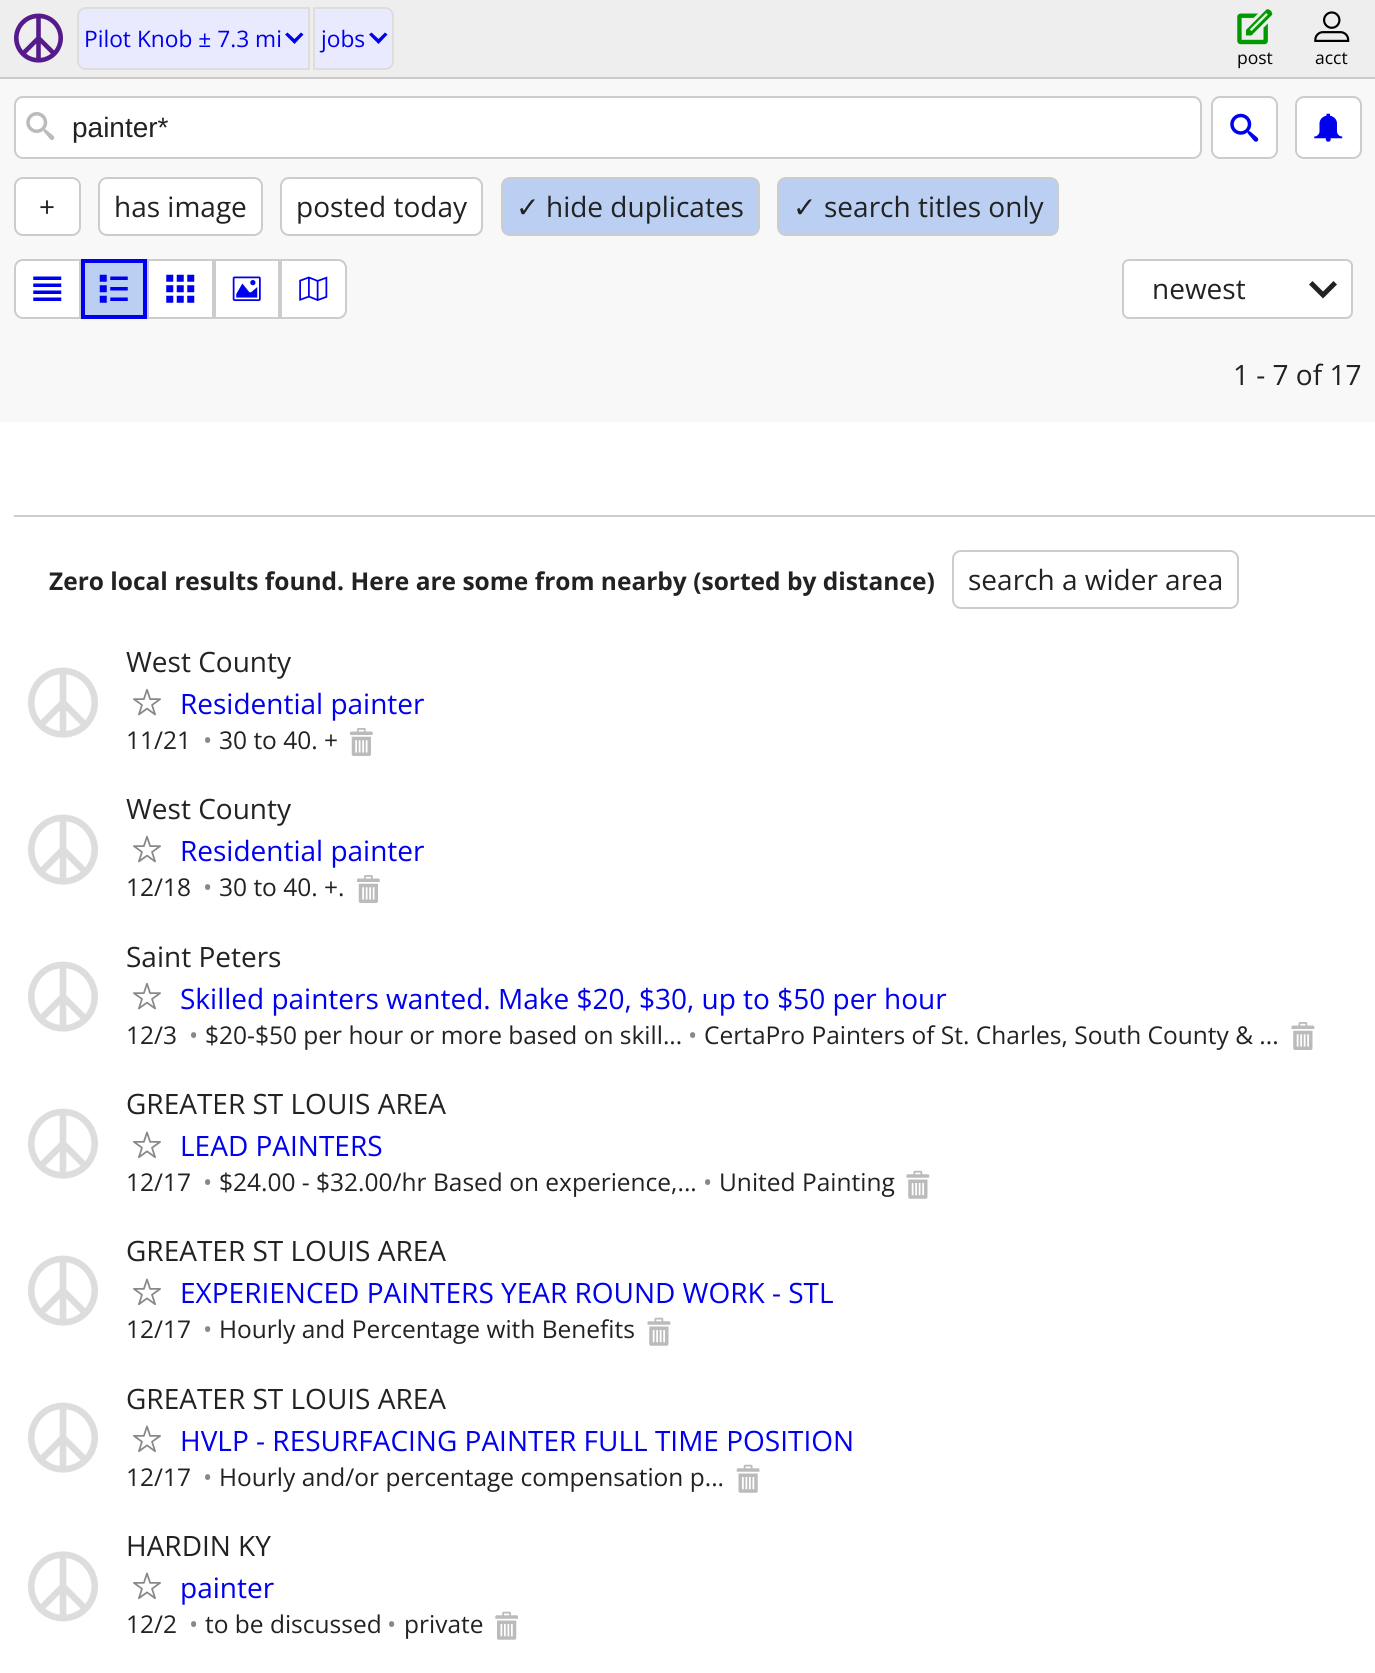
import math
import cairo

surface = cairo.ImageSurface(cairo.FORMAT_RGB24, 1375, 1673)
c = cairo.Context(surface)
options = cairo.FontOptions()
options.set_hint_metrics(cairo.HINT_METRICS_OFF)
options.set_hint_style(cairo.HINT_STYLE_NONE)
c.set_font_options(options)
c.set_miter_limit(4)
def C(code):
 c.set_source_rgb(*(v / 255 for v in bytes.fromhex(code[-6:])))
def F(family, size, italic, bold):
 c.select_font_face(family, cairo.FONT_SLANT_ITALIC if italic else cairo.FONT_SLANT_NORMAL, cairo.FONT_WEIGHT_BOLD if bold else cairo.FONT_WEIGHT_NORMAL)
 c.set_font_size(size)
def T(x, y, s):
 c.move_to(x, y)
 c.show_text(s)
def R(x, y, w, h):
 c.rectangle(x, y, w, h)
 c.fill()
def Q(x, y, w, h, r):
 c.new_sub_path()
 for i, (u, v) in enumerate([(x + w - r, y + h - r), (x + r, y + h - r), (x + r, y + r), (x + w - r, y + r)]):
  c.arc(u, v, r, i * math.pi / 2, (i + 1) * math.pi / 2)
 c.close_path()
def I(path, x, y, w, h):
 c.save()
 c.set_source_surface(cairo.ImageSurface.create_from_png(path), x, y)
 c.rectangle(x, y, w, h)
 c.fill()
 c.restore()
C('ffffff')
c.paint()
C('eeeeee')
R(0,0,1375,77)
C('cccccc')
R(0,77,1375,2)
I('1.png',14,13,49,50)
C('eaeaff')
c.new_path()
c.move_to(86,8)
c.line_to(309,8)
c.line_to(309,69)
c.line_to(86,69)
c.curve_to(81.5,69,78,65.5,78,61)
c.line_to(78,16)
c.curve_to(78,11.5,81.5,8,86,8)
c.close_path()
c.fill_preserve()
C('dddddd')
c.stroke()
F('Open Sans',22.75,0,0)
C('0000ee')
T(84,47,'Pilot Knob ± 7.3 mi')
c.new_path()
c.move_to(303.5,34.5)
c.line_to(301,32.5)
c.line_to(294.5,39)
c.line_to(287.5,32.5)
c.line_to(285,34.5)
c.line_to(294.5,44)
c.close_path()
c.fill()
C('eaeaff')
c.new_path()
c.move_to(314,8)
c.line_to(385,8)
c.curve_to(389.5,8,393,11.5,393,16)
c.line_to(393,61)
c.curve_to(393,65.5,389.5,69,385,69)
c.line_to(314,69)
c.close_path()
c.fill_preserve()
C('dddddd')
c.stroke()
C('0000ee')
T(321,47,'jobs')
c.new_path()
c.move_to(387.5,34.5)
c.line_to(385,32.5)
c.line_to(378.5,39)
c.line_to(371.5,32.5)
c.line_to(369,34.5)
c.line_to(378.5,44)
c.close_path()
c.fill()
I('2.png',1237,9,36,36)
F('Open Sans',17.5,0,0)
C('000000')
T(1237,64,'post')
I('3.png',1314,11,36,31)
T(1315,64,'acct')
C('f8f8f8')
R(0,79,1375,343)
C('ffffff')
Q(15,97,1186,61,8)
c.fill_preserve()
C('cccccc')
c.stroke()
I('4.png',26,112,29,28)
F('Liberation Sans',28,0,0)
C('222222')
T(72,137,'painter*')
C('ffffff')
Q(1212,97,65,61,8)
c.fill_preserve()
C('cccccc')
c.stroke()
I('5.png',1230,113,29,29)
C('ffffff')
Q(1296,97,65,61,8)
c.fill_preserve()
C('cccccc')
c.stroke()
I('6.png',1314,113,29,29)
C('ffffff')
Q(15,178,65,57,8)
c.fill_preserve()
C('cccccc')
c.stroke()
F('Open Sans',28,0,0)
C('222222')
T(39,217,'+')
C('ffffff')
Q(99,178,163,57,8)
c.fill_preserve()
C('cccccc')
c.stroke()
C('222222')
T(114,217,'has image')
C('ffffff')
Q(281,178,201,57,8)
c.fill_preserve()
C('cccccc')
c.stroke()
C('222222')
T(296,217,'posted today')
C('bacff2')
Q(502,178,257,57,8)
c.fill_preserve()
C('cccccc')
c.stroke()
F('DejaVu Sans',28,0,0)
C('222222')
T(516,217,'✓')
F('Open Sans',28,0,0)
T(546,217,'hide duplicates')
C('bacff2')
Q(778,178,280,57,8)
c.fill_preserve()
C('cccccc')
c.stroke()
F('DejaVu Sans',28,0,0)
C('222222')
T(793,217,'✓')
F('Open Sans',28,0,0)
T(824,217,'search titles only')
C('ffffff')
c.new_path()
c.move_to(23,260)
c.line_to(80,260)
c.line_to(80,318)
c.line_to(23,318)
c.curve_to(18.5,318,15,314.5,15,310)
c.line_to(15,268)
c.curve_to(15,263.5,18.5,260,23,260)
c.close_path()
c.fill_preserve()
C('cccccc')
c.stroke()
I('7.png',33,276,29,25)
C('bacff2')
c.rectangle(83,261,62,56)
c.fill_preserve()
C('0000ee')
c.set_line_width(4)
c.stroke()
I('8.png',99,274,29,29)
C('ffffff')
c.rectangle(148,260,65,58)
c.fill_preserve()
C('cccccc')
c.set_line_width(2)
c.stroke()
I('9.png',166,274,29,29)
C('ffffff')
c.rectangle(215,260,64,58)
c.fill_preserve()
C('cccccc')
c.stroke()
I('10.png',232,276,29,25)
C('ffffff')
c.new_path()
c.move_to(281,260)
c.line_to(338,260)
c.curve_to(342.5,260,346,263.5,346,268)
c.line_to(346,310)
c.curve_to(346,314.5,342.5,318,338,318)
c.line_to(281,318)
c.close_path()
c.fill_preserve()
C('cccccc')
c.stroke()
I('11.png',299,276,29,25)
C('ffffff')
Q(1123,260,229,58,6)
c.fill_preserve()
C('cccccc')
c.stroke()
C('222222')
T(1152,299,'newest')
c.new_path()
c.move_to(1337,284.5)
c.line_to(1333.5,281)
c.line_to(1323,291.5)
c.line_to(1312.5,281)
c.line_to(1309,284.5)
c.line_to(1323,298.5)
c.close_path()
c.fill()
T(1233,385,'1 - 7 of 17')
C('cccccc')
R(14,515,1361,2)
F('Open Sans',24.5,0,1)
C('222222')
T(49,590,'Zero local results found. Here are some from nearby (sorted by distance)')
Q(953,551,285,57,8)
C('cccccc')
c.stroke()
F('Open Sans',28,0,0)
C('222222')
T(968,590,'search a wider area')
I('12.png',28,667,70,71)
T(126,672,'West County')
I('13.png',133,688,28,28)
C('0000ee')
T(180,714,'Residential painter')
F('Open Sans',24.5,0,0)
C('222222')
T(126,749,'11/21')
C('888888')
T(203,749,'•')
C('222222')
T(219,749,'30 to 40. +')
I('14.png',350,728,23,28)
I('12.png',28,814,70,71)
F('Open Sans',28,0,0)
T(126,819,'West County')
I('13.png',133,835,28,28)
C('0000ee')
T(180,861,'Residential painter')
F('Open Sans',24.5,0,0)
C('222222')
T(126,896,'12/18')
C('888888')
T(203,896,'•')
C('222222')
T(219,896,'30 to 40. +.')
I('14.png',357,875,23,28)
I('12.png',28,961,70,71)
F('Open Sans',28,0,0)
T(126,967,'Saint Peters')
I('13.png',133,982,28,28)
C('0000ee')
T(180,1009,'Skilled painters wanted. Make $20, $30, up to $50 per hour')
F('Open Sans',24.5,0,0)
C('222222')
T(126,1044,'12/3')
C('888888')
T(189,1044,'•')
C('222222')
T(205,1044,'$20-$50 per hour or more based on skill...')
C('888888')
T(688,1044,'•')
C('222222')
T(704,1044,'CertaPro Painters of St. Charles, South County & ...')
I('15.png',1291,1022,24,28)
I('12.png',28,1108,70,71)
F('Open Sans',28,0,0)
T(126,1114,'GREATER ST LOUIS AREA')
I('16.png',133,1131,28,28)
C('0000ee')
T(180,1156,'LEAD PAINTERS')
F('Open Sans',24.5,0,0)
C('222222')
T(126,1191,'12/17')
C('888888')
T(203,1191,'•')
C('222222')
T(219,1191,'$24.00 - $32.00/hr Based on experience,...')
C('888888')
T(703,1191,'•')
C('222222')
T(719,1191,'United Painting')
I('17.png',906,1170,24,29)
I('12.png',28,1255,70,71)
F('Open Sans',28,0,0)
T(126,1261,'GREATER ST LOUIS AREA')
I('16.png',133,1278,28,28)
C('0000ee')
T(180,1303,'EXPERIENCED PAINTERS YEAR ROUND WORK - STL')
F('Open Sans',24.5,0,0)
C('222222')
T(126,1338,'12/17')
C('888888')
T(203,1338,'•')
C('222222')
T(219,1338,'Hourly and Percentage with Benefits')
I('17.png',647,1317,24,29)
I('12.png',28,1402,70,71)
F('Open Sans',28,0,0)
T(126,1409,'GREATER ST LOUIS AREA')
I('16.png',133,1425,28,28)
C('0000ee')
T(180,1451,'HVLP - RESURFACING PAINTER FULL TIME POSITION')
F('Open Sans',24.5,0,0)
C('222222')
T(126,1486,'12/17')
C('888888')
T(203,1486,'•')
C('222222')
T(219,1486,'Hourly and/or percentage compensation p...')
I('18.png',736,1464,24,29)
I('19.png',28,1551,70,71)
F('Open Sans',28,0,0)
T(126,1556,'HARDIN KY')
I('16.png',133,1572,28,28)
C('0000ee')
T(180,1598,'painter')
F('Open Sans',24.5,0,0)
C('222222')
T(126,1633,'12/2')
C('888888')
T(189,1633,'•')
C('222222')
T(205,1633,'to be discussed')
C('888888')
T(387,1633,'•')
C('222222')
T(404,1633,'private')
I('20.png',495,1611,23,29)
surface.write_to_png('o.png')
